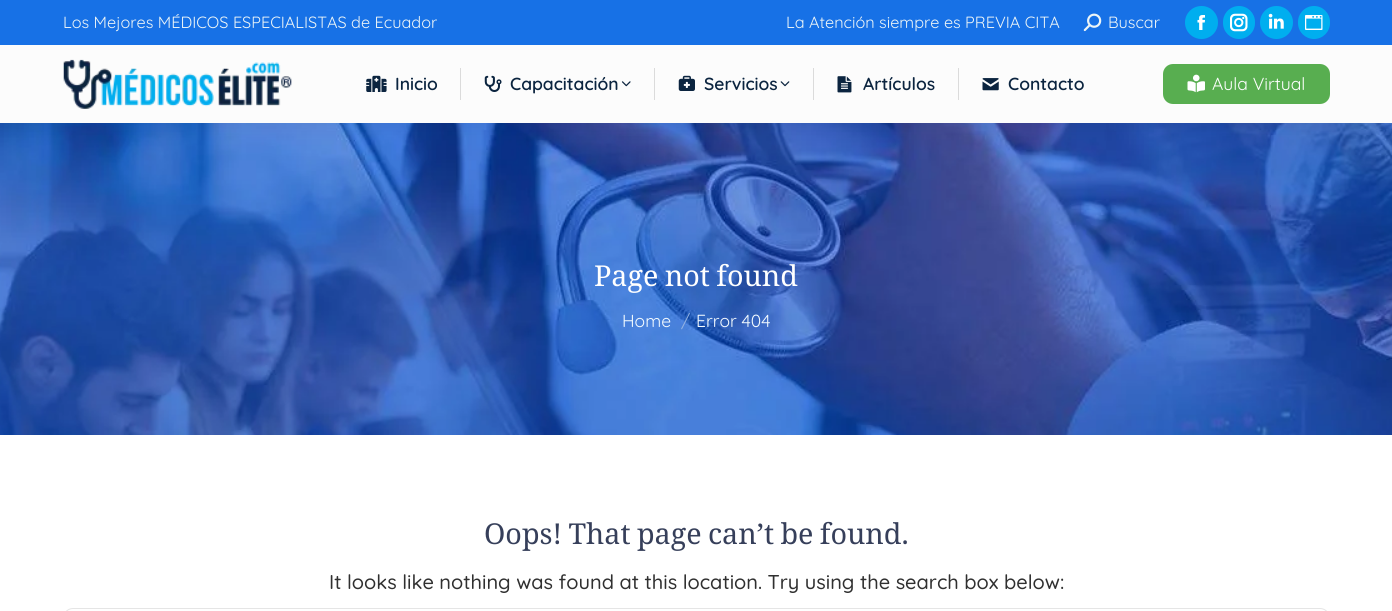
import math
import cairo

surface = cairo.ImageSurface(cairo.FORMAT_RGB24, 1392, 611)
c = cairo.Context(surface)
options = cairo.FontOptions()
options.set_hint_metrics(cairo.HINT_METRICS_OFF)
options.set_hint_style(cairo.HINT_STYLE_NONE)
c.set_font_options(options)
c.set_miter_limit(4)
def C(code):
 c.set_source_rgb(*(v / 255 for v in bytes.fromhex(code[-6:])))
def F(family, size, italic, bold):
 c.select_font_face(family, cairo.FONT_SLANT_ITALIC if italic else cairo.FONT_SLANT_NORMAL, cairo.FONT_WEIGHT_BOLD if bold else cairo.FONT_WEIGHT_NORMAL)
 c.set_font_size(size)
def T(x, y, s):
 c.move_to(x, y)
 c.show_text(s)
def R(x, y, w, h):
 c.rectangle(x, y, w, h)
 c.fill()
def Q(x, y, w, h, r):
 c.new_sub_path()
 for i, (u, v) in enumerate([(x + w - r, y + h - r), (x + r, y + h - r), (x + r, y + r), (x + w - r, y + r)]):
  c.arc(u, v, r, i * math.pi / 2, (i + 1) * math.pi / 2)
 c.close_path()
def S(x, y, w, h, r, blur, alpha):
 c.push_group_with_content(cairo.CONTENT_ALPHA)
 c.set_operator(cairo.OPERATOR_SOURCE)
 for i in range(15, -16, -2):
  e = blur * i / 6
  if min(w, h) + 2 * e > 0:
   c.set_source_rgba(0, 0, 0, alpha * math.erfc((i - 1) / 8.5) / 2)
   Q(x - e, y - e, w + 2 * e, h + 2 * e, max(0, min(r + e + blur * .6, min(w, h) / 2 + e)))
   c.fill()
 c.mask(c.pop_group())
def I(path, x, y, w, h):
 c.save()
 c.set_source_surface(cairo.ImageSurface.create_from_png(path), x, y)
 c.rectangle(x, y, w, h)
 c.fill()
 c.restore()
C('ffffff')
c.paint()
I('15.png',0,123,1392,312)
C('000000')
S(-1,-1,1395,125,0,9.5,.07)
C('fcfcfc')
R(0,45,1392,78)
C('1771e6')
R(0,0,1392,45)
F('Quicksand',16.25,0,0)
C('edf5f7')
T(63,28,'Los Mejores MÉDICOS ESPECIALISTAS de Ecuador')
T(786,28,'La Atención siempre es PREVIA CITA')
I('1.png',1083,13,19,19)
T(1108,28,'Buscar')
C('00aeef')
c.new_path()
c.arc(1201.5,22.5,16.5,0,2 * math.pi)
c.fill()
I('2.png',1197,15,8,15)
Q(1223,6,32,33,16)
c.fill()
I('3.png',1230,13,18,19)
c.arc(1276.5,22.5,16.5,0,2 * math.pi)
c.fill()
I('4.png',1268,13,16,16)
Q(1298,6,32,33,16)
c.fill()
I('5.png',1305,15,18,15)
I('6.png',63,59,229,50)
I('7.png',366,75,21,17)
F('Quicksand SemiBold',17.5,0,0)
C('0b243f')
T(395,90,'Inicio')
C('dbdbdb')
R(460,68,1,32)
I('8.png',484,75,18,17)
C('0b243f')
T(510,90,'Capacitación')
I('9.png',621,81,10,6)
C('dbdbdb')
R(654,68,1,32)
I('10.png',678,75,17,16)
C('0b243f')
T(704,90,'Servicios')
I('11.png',780,81,10,6)
C('dbdbdb')
R(813,68,1,32)
I('12.png',837,76,15,17)
C('0b243f')
T(863,90,'Artículos')
C('dbdbdb')
R(958,68,1,32)
I('13.png',982,78,17,13)
C('0b243f')
T(1008,90,'Contacto')
C('58ae50')
Q(1163,64,167,40,10)
c.fill()
I('14.png',1187,74,18,19)
F('Quicksand',17.5,0,0)
C('ffffff')
T(1212,90,'Aula Virtual')
F('Noto Serif Ahom',28.75,0,0)
T(594,286,'Page not found')
F('Quicksand',17.5,0,0)
C('f4fbff')
T(622,327,'Home')
C('93b2e2')
T(681,327,'/')
C('f4fbff')
T(696,327,'Error 404')
F('Noto Serif Ahom',28.75,0,0)
C('363f5a')
T(484,544,'Oops! That page can’t be found.')
F('Quicksand Medium',20,0,0)
C('303030')
T(329,589,'It looks like nothing was found at this location. Try using the search box below:')
Q(63.5,608.5,1266,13,9.5)
C('e5e5e5')
c.set_line_width(1)
c.stroke()
surface.write_to_png('o.png')
